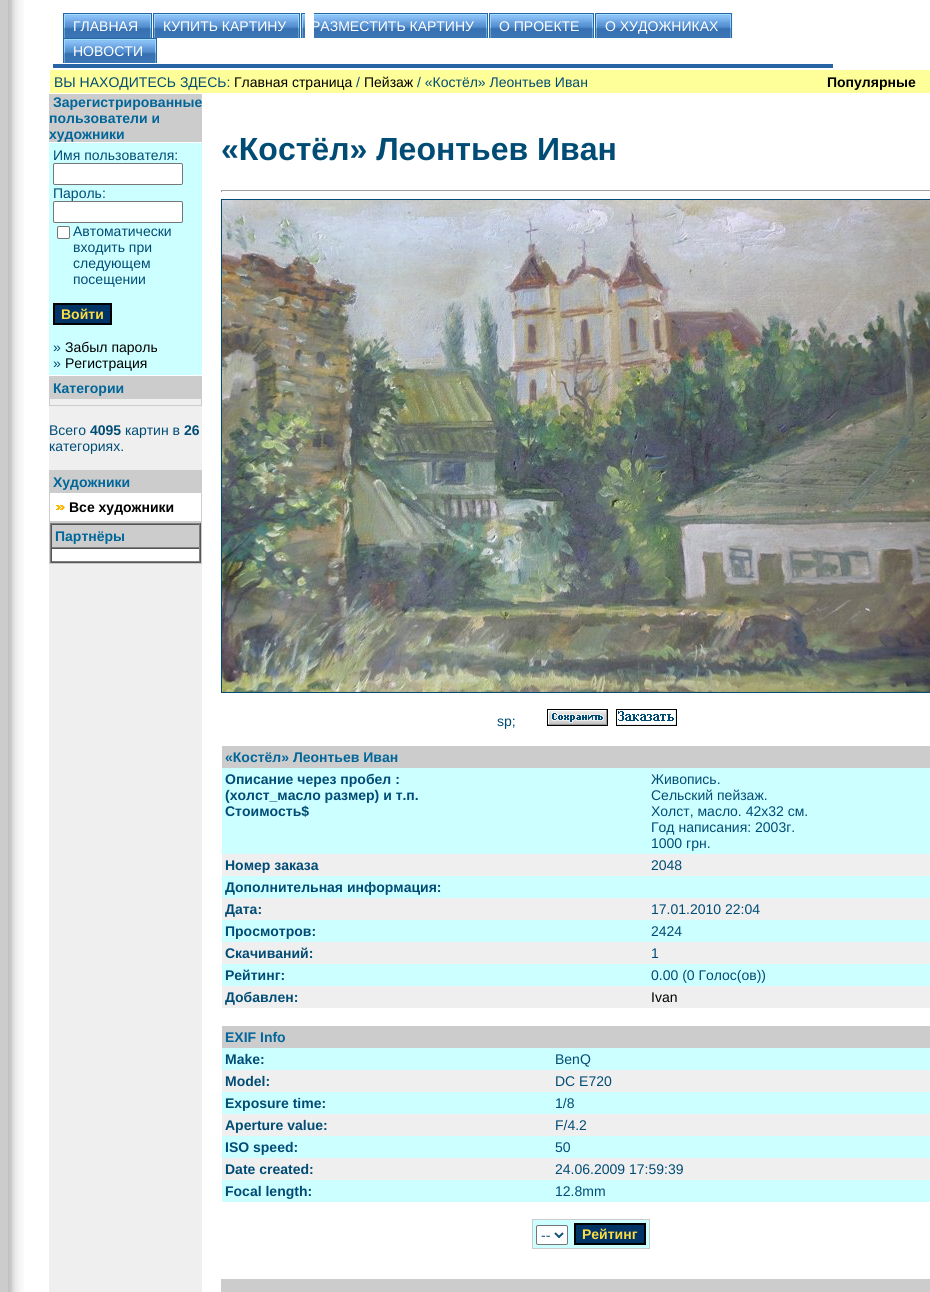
import math
import cairo

surface = cairo.ImageSurface(cairo.FORMAT_RGB24, 930, 1292)
c = cairo.Context(surface)
options = cairo.FontOptions()
options.set_hint_metrics(cairo.HINT_METRICS_OFF)
options.set_hint_style(cairo.HINT_STYLE_NONE)
c.set_font_options(options)
c.set_miter_limit(4)
def C(code):
 c.set_source_rgb(*(v / 255 for v in bytes.fromhex(code[-6:])))
def F(family, size, italic, bold):
 c.select_font_face(family, cairo.FONT_SLANT_ITALIC if italic else cairo.FONT_SLANT_NORMAL, cairo.FONT_WEIGHT_BOLD if bold else cairo.FONT_WEIGHT_NORMAL)
 c.set_font_size(size)
def T(x, y, s):
 c.move_to(x, y)
 c.show_text(s)
def R(x, y, w, h):
 c.rectangle(x, y, w, h)
 c.fill()
def Q(x, y, w, h, r):
 c.new_sub_path()
 for i, (u, v) in enumerate([(x + w - r, y + h - r), (x + r, y + h - r), (x + r, y + r), (x + w - r, y + r)]):
  c.arc(u, v, r, i * math.pi / 2, (i + 1) * math.pi / 2)
 c.close_path()
def I(path, x, y, w, h):
 c.save()
 c.set_source_surface(cairo.ImageSurface.create_from_png(path), x, y)
 c.rectangle(x, y, w, h)
 c.fill()
 c.restore()
C('cccccc')
c.paint()
C('ffffff')
R(24,0,906,1292)
I('1.png',8,0,16,1292)
C('2763a5')
R(53,64,780,4)
I('2.png',63,13,4,25)
I('3.png',67,13,85,25)
F('Liberation Sans',14,0,0)
C('ffffff')
T(73,31,'ГЛАВНАЯ')
I('2.png',153,13,4,25)
I('4.png',157,13,144,25)
T(163,31,'КУПИТЬ КАРТИНУ')
I('2.png',301,13,4,25)
I('5.png',314,13,174,25)
T(311,31,'РАЗМЕСТИТЬ КАРТИНУ')
I('2.png',489,13,4,25)
I('6.png',493,13,101,25)
T(499,31,'О ПРОЕКТЕ')
I('2.png',595,13,4,25)
I('7.png',599,13,134,25)
T(605,31,'О ХУДОЖНИКАХ')
I('2.png',63,38,4,25)
I('8.png',67,38,90,25)
T(73,56,'НОВОСТИ')
C('ffff99')
R(50,70,880,23)
C('004c75')
T(54,87,'ВЫ НАХОДИТЕСЬ ЗДЕСЬ:')
C('000000')
T(234,87,'Главная страница')
C('004c75')
T(356,87,'/')
C('000000')
T(364,87,'Пейзаж')
C('004c75')
T(417,87,'/ «Костёл» Леонтьев Иван')
F('Liberation Sans',14,0,1)
C('000000')
T(827,87,'Популярные')
C('efefef')
R(49,406,153,886)
C('cccccc')
R(49,94,153,48)
C('006699')
T(53,107,'Зарегистрированные')
T(49,123,'пользователи и')
T(49,139,'художники')
C('ccffff')
R(49,143,153,232)
F('Liberation Sans',14,0,0)
C('004c75')
T(53,160,'Имя пользователя:')
C('ffffff')
Q(53.5,163.5,129,21,1.5)
c.fill_preserve()
C('767676')
c.set_line_width(1)
c.stroke()
C('004c75')
T(53,198,'Пароль:')
C('ffffff')
Q(53.5,201.5,129,21,1.5)
c.fill_preserve()
C('767676')
c.stroke()
C('ffffff')
Q(57.5,226.5,12,12,1.5)
c.fill_preserve()
C('767676')
c.stroke()
C('004c75')
T(73,236,'Автоматически')
T(73,252,'входить при')
T(73,268,'следующем')
T(73,284,'посещении')
C('003366')
c.rectangle(54,304,57,20)
c.fill_preserve()
C('000000')
c.set_line_width(2)
c.stroke()
F('Liberation Sans',14,0,1)
C('fcdc43')
T(61,319,'Войти')
F('Liberation Sans',14,0,0)
C('004c75')
T(53,352,'»')
C('000000')
T(65,352,'Забыл пароль')
C('004c75')
T(53,368,'»')
C('000000')
T(65,368,'Регистрация')
C('cccccc')
R(49,376,153,30)
F('Liberation Sans',14,0,1)
C('006699')
T(53,393,'Категории')
C('efefef')
R(50,399,151,6)
F('Liberation Sans',14,0,0)
C('004c75')
T(49,435,'Всего')
F('Liberation Sans',14,0,1)
T(90,435,'4095')
F('Liberation Sans',14,0,0)
T(125,435,'картин в')
F('Liberation Sans',14,0,1)
T(184,435,'26')
F('Liberation Sans',14,0,0)
T(49,451,'категориях.')
C('cccccc')
R(49,470,153,94)
F('Liberation Sans',14,0,1)
C('006699')
T(53,487,'Художники')
C('ffffff')
R(50,493,151,28)
I('9.png',56,505,9,5)
C('000000')
T(69,512,'Все художники')
C('808080')
R(50,523,151,1)
C('555555')
R(200,523,1,40)
R(50,562,151,1)
C('808080')
R(50,523,1,40)
C('555555')
R(51,524,149,1)
C('808080')
R(199,524,1,24)
R(51,547,149,1)
C('555555')
R(51,524,1,24)
C('006699')
T(55,541,'Партнёры')
C('ffffff')
R(52,549,147,12)
C('555555')
R(51,548,149,1)
C('808080')
R(199,548,1,14)
R(51,561,149,1)
C('555555')
R(51,548,1,14)
F('Liberation Sans',32,0,1)
C('004c75')
T(221,160,'«Костёл» Леонтьев Иван')
C('9f9f9f')
R(221,190,709,1)
R(221,190,1,2)
c.rectangle(221.5,199.5,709,493)
C('004c75')
c.set_line_width(1)
c.stroke()
I('10.png',222,200,708,492)
F('Liberation Sans',14,0,0)
T(497,726,'sp;')
I('11.png',547,709,61,17)
I('12.png',616,709,61,17)
C('cccccc')
R(222,746,708,22)
F('Liberation Sans',14,0,1)
C('006699')
T(225,762,'«Костёл» Леонтьев Иван')
C('ccffff')
R(222,768,708,86)
C('004c75')
T(225,784,'Описание через пробел :')
T(225,800,'(холст_масло размер) и т.п.')
T(225,816,'Стоимость$')
F('Liberation Sans',14,0,0)
T(651,784,'Живопись.')
T(651,800,'Сельский пейзаж.')
T(651,816,'Холст, масло. 42х32 см.')
T(651,832,'Год написания: 2003г.')
T(651,848,'1000 грн.')
C('efefef')
R(222,854,708,22)
F('Liberation Sans',14,0,1)
C('004c75')
T(225,870,'Номер заказа')
F('Liberation Sans',14,0,0)
T(651,870,'2048')
C('ccffff')
R(222,876,708,22)
F('Liberation Sans',14,0,1)
C('004c75')
T(225,892,'Дополнительная информация:')
C('efefef')
R(222,898,708,22)
C('004c75')
T(225,914,'Дата:')
F('Liberation Sans',14,0,0)
T(651,914,'17.01.2010 22:04')
C('ccffff')
R(222,920,708,22)
F('Liberation Sans',14,0,1)
C('004c75')
T(225,936,'Просмотров:')
F('Liberation Sans',14,0,0)
T(651,936,'2424')
C('efefef')
R(222,942,708,22)
F('Liberation Sans',14,0,1)
C('004c75')
T(225,958,'Скачиваний:')
F('Liberation Sans',14,0,0)
T(651,958,'1')
C('ccffff')
R(222,964,708,22)
F('Liberation Sans',14,0,1)
C('004c75')
T(225,980,'Рейтинг:')
F('Liberation Sans',14,0,0)
T(651,980,'0.00 (0 Голос(ов))')
C('efefef')
R(222,986,708,22)
F('Liberation Sans',14,0,1)
C('004c75')
T(225,1002,'Добавлен:')
F('Liberation Sans',14,0,0)
C('000000')
T(651,1002,'Ivan')
C('cccccc')
R(222,1026,708,22)
F('Liberation Sans',14,0,1)
C('006699')
T(225,1042,'EXIF Info')
C('ccffff')
R(222,1048,708,22)
C('004c75')
T(225,1064,'Make:')
F('Liberation Sans',14,0,0)
T(555,1064,'BenQ')
C('efefef')
R(222,1070,708,22)
F('Liberation Sans',14,0,1)
C('004c75')
T(225,1086,'Model:')
F('Liberation Sans',14,0,0)
T(555,1086,'DC E720')
C('ccffff')
R(222,1092,708,22)
F('Liberation Sans',14,0,1)
C('004c75')
T(225,1108,'Exposure time:')
F('Liberation Sans',14,0,0)
T(555,1108,'1/8')
C('efefef')
R(222,1114,708,22)
F('Liberation Sans',14,0,1)
C('004c75')
T(225,1130,'Aperture value:')
F('Liberation Sans',14,0,0)
T(555,1130,'F/4.2')
C('ccffff')
R(222,1136,708,22)
F('Liberation Sans',14,0,1)
C('004c75')
T(225,1152,'ISO speed:')
F('Liberation Sans',14,0,0)
T(555,1152,'50')
C('efefef')
R(222,1158,708,22)
F('Liberation Sans',14,0,1)
C('004c75')
T(225,1174,'Date created:')
F('Liberation Sans',14,0,0)
T(555,1174,'24.06.2009 17:59:39')
C('ccffff')
R(222,1180,708,22)
F('Liberation Sans',14,0,1)
C('004c75')
T(225,1196,'Focal length:')
F('Liberation Sans',14,0,0)
T(555,1196,'12.8mm')
C('cccccc')
R(532,1219,118,30)
C('ccffff')
R(533,1220,116,28)
C('ffffff')
Q(536.5,1225.5,31,19,1.5)
c.fill_preserve()
C('767676')
c.stroke()
c.new_path()
c.move_to(555,1233)
c.line_to(559,1237)
c.line_to(563,1233)
C('0f5475')
c.set_line_width(2)
c.stroke()
T(541,1240,'--')
C('003366')
c.rectangle(575,1224,70,20)
c.fill_preserve()
C('000000')
c.stroke()
F('Liberation Sans',14,0,1)
C('fcdc43')
T(582,1239,'Рейтинг')
C('cccccc')
R(221,1279,709,13)
surface.write_to_png('o.png')
